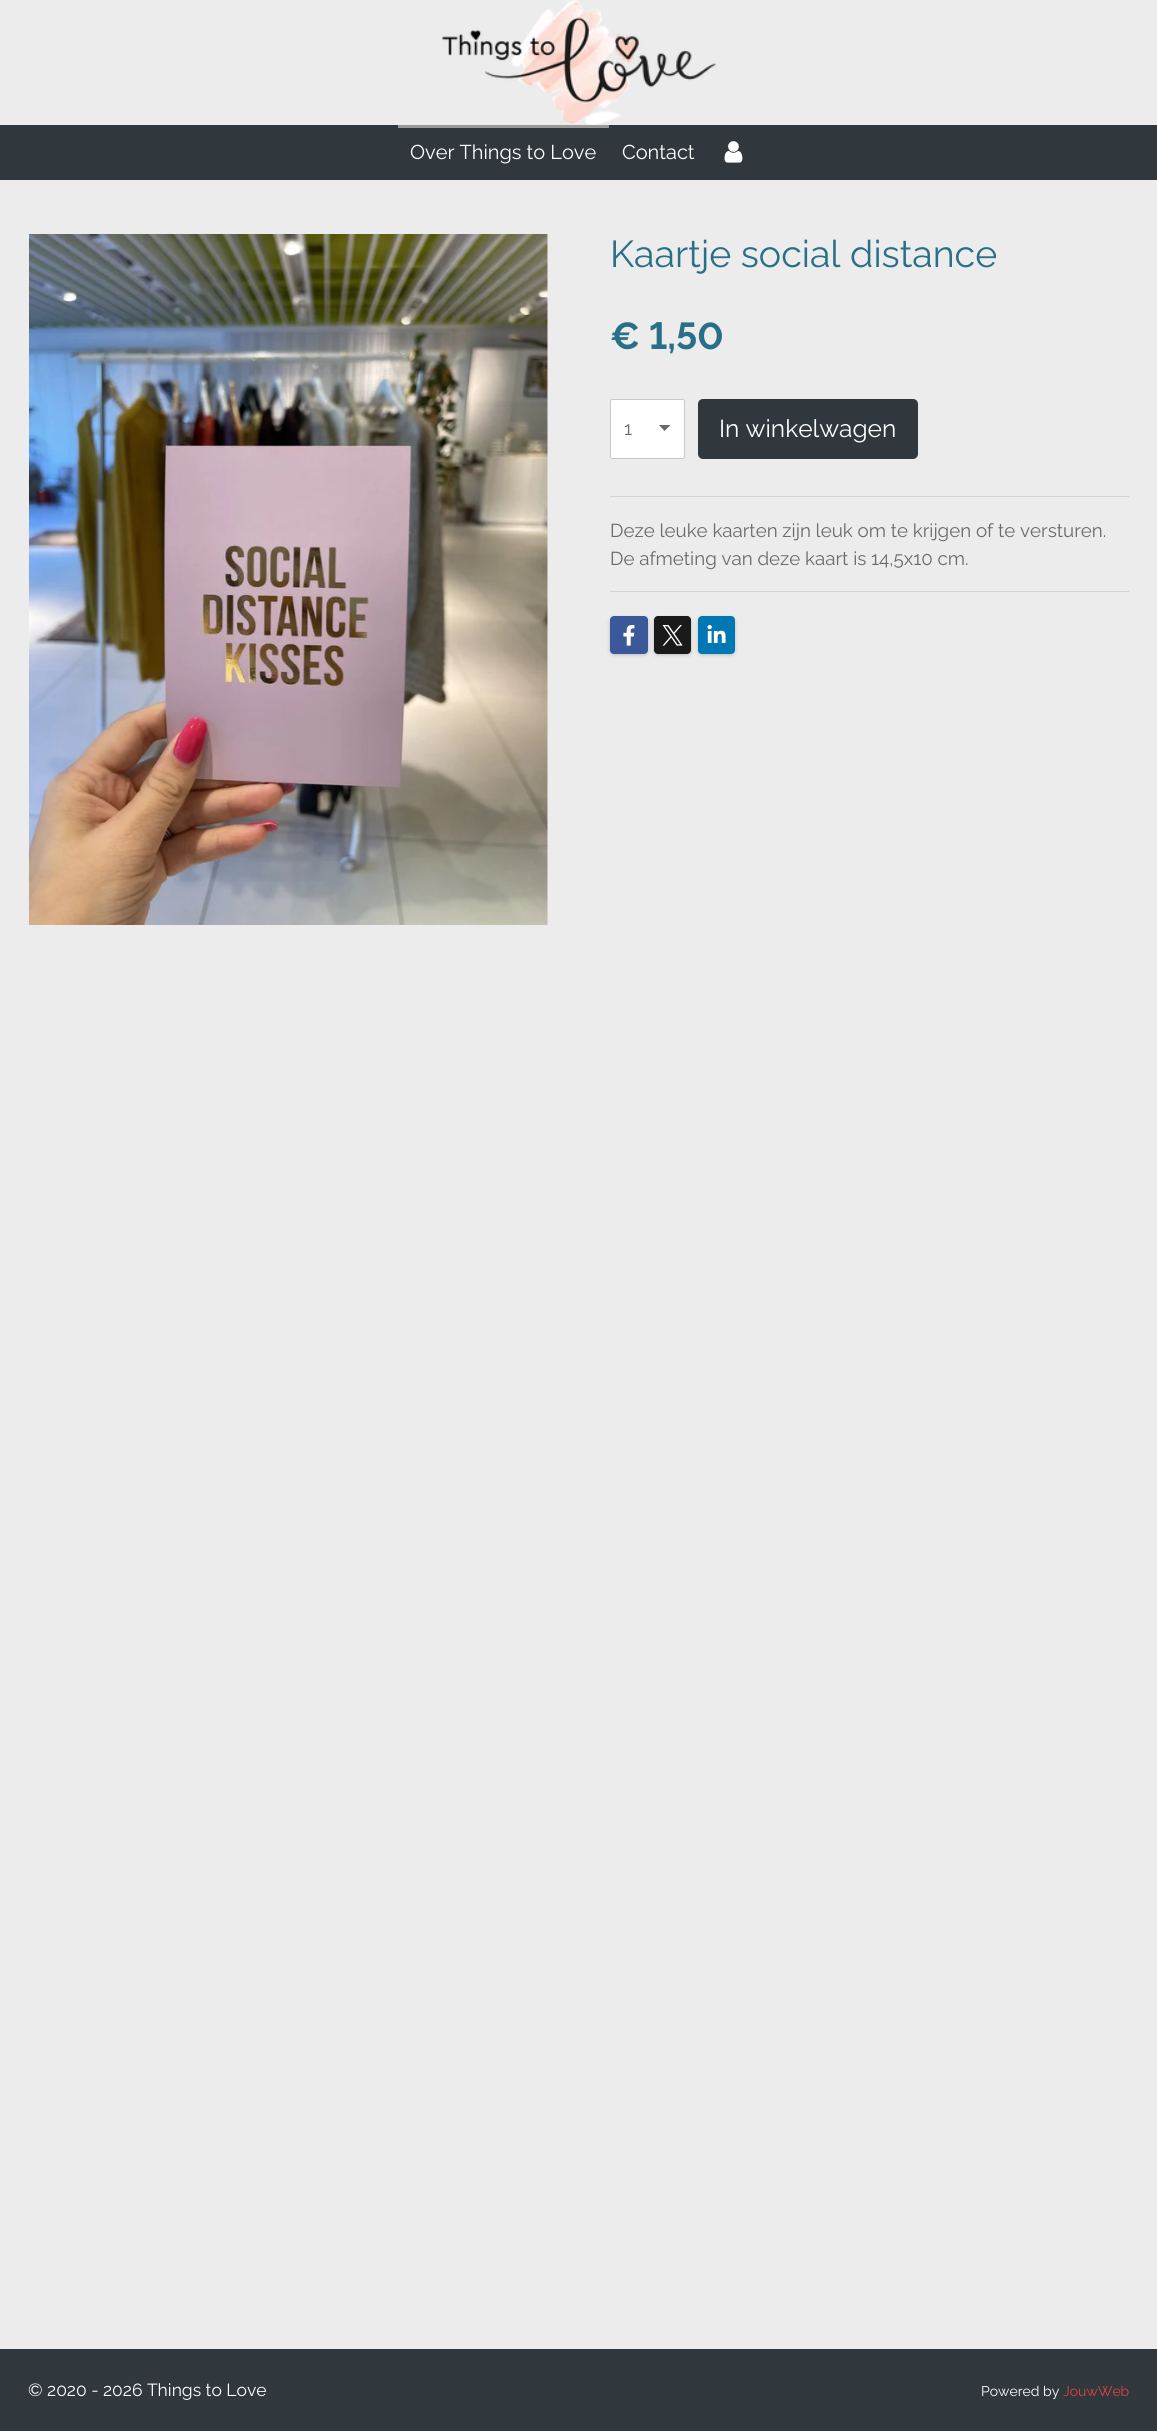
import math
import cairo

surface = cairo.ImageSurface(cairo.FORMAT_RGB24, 1157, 2431)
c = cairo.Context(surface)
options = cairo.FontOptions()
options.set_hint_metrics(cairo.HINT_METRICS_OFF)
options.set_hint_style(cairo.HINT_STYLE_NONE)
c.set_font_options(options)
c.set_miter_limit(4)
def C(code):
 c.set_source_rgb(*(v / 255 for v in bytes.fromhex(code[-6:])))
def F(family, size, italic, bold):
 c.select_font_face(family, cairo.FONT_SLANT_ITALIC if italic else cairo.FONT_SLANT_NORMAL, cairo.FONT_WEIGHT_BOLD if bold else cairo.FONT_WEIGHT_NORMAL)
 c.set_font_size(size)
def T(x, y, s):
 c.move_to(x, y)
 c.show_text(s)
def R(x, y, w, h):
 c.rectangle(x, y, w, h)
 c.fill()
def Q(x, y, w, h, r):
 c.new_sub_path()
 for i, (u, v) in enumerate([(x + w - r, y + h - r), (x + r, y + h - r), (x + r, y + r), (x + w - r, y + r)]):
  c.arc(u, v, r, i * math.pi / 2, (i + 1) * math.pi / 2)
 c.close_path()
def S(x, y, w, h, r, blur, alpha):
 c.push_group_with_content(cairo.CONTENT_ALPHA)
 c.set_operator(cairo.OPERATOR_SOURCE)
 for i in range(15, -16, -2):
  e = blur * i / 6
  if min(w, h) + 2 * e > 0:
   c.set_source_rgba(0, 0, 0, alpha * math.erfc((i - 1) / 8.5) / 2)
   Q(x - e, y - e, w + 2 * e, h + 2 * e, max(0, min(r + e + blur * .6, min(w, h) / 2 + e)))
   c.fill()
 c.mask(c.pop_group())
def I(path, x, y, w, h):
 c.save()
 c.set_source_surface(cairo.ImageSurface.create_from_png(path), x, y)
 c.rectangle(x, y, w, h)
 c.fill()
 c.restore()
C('ececec')
c.paint()
I('1.png',442,0,275,125)
C('30383d')
R(0,125,1157,55)
C('999999')
R(398,125,211,3)
F('Raleway',20,0,0)
C('ffffff')
T(410,159,'Over Things to Love')
T(622,159,'Contact')
I('2.png',724,141,19,22)
I('3.png',29,234,519,691)
F('Raleway',37.5,0,0)
C('296f87')
T(610,267,'Kaartje social distance')
F('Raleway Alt',37.5,0,1)
T(610,349,'€ 1,50')
C('ffffff')
Q(610,399,75,60,2.5)
c.fill()
C('6a6a6a')
c.new_path()
c.move_to(664.5,431)
c.line_to(659,425)
c.line_to(670.5,425)
c.close_path()
c.fill()
Q(610.5,399.5,74,59,2)
c.set_source_rgba(0.576,0.576,0.576,0.5)
c.set_line_width(1)
c.stroke()
F('Raleway',18.75,0,0)
C('6a6a6a')
T(624,435,'1')
C('30383d')
Q(698,399,220,60,5)
c.fill()
F('Raleway',24.5,0,0)
C('ffffff')
T(719,437,'In winkelwagen')
C('d2d2d2')
R(610,496,519,1)
F('Raleway',18.75,0,0)
C('6a6a6a')
T(610,537,'Deze leuke kaarten zijn leuk om te krijgen of te versturen.')
T(610,565,'De afmeting van deze kaart is 14,5x10 cm.')
C('d2d2d2')
R(610,591,519,1)
C('000000')
S(610,618,38,37,4,2,.2)
C('3b5998')
Q(610,616,38,38,4)
c.fill()
I('4.png',623,625,12,21)
C('000000')
S(654,618,37,37,4,2,.2)
C('1a1a1a')
Q(654,616,37,38,4)
c.fill()
I('5.png',662,625,21,21)
C('000000')
S(698,618,37,37,4,2,.2)
C('0077b5')
Q(698,616,37,38,4)
c.fill()
I('6.png',707,625,19,18)
C('30383d')
R(0,2349,1157,82)
F('Raleway',17.5,0,0)
C('ffffff')
T(28,2396,'© 2020 - 2026 Things to Love')
F('Raleway',14,0,0)
T(981,2396,'Powered by')
C('da4444')
T(1063,2396,'JouwWeb')
surface.write_to_png('o.png')
